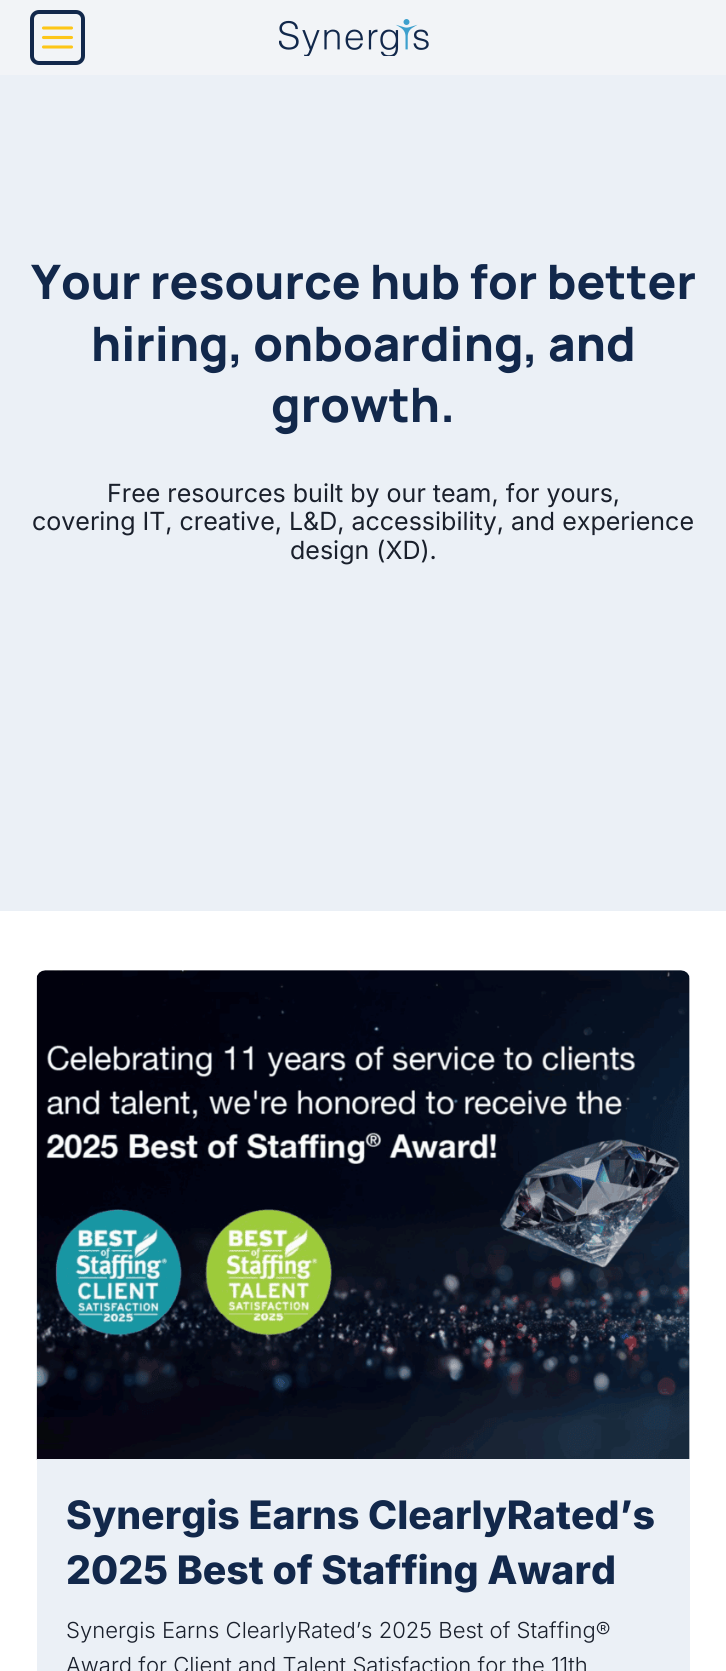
import math
import cairo

surface = cairo.ImageSurface(cairo.FORMAT_RGB24, 726, 1671)
c = cairo.Context(surface)
options = cairo.FontOptions()
options.set_hint_metrics(cairo.HINT_METRICS_OFF)
options.set_hint_style(cairo.HINT_STYLE_NONE)
c.set_font_options(options)
c.set_miter_limit(4)
def C(code):
 c.set_source_rgb(*(v / 255 for v in bytes.fromhex(code[-6:])))
def F(family, size, italic, bold):
 c.select_font_face(family, cairo.FONT_SLANT_ITALIC if italic else cairo.FONT_SLANT_NORMAL, cairo.FONT_WEIGHT_BOLD if bold else cairo.FONT_WEIGHT_NORMAL)
 c.set_font_size(size)
def T(x, y, s):
 c.move_to(x, y)
 c.show_text(s)
def R(x, y, w, h):
 c.rectangle(x, y, w, h)
 c.fill()
def Q(x, y, w, h, r):
 c.new_sub_path()
 for i, (u, v) in enumerate([(x + w - r, y + h - r), (x + r, y + h - r), (x + r, y + r), (x + w - r, y + r)]):
  c.arc(u, v, r, i * math.pi / 2, (i + 1) * math.pi / 2)
 c.close_path()
def I(path, x, y, w, h):
 c.save()
 c.set_source_surface(cairo.ImageSurface.create_from_png(path), x, y)
 c.rectangle(x, y, w, h)
 c.fill()
 c.restore()
C('ffffff')
c.paint()
C('f2f4f7')
R(0,0,726,75)
Q(32,12,51,51,7)
C('12284b')
c.set_line_width(4)
c.stroke()
c.new_path()
c.move_to(43.5,37.5)
c.line_to(71.5,37.5)
c.move_to(43.5,28)
c.line_to(71.5,28)
c.move_to(43.5,47)
c.line_to(71.5,47)
C('fdc618')
c.set_line_width(3.1)
c.set_line_cap(cairo.LINE_CAP_ROUND)
c.set_line_join(cairo.LINE_JOIN_ROUND)
c.stroke()
I('1.png',279,19,150,37)
C('ebf0f6')
R(0,75,726,836)
F('Manrope ExtraBold',47.5,0,0)
C('12284b')
T(31,299,'Your resource hub for better')
T(91,361,'hiring, onboarding, and')
T(271,422,'growth.')
F('Inter',25,0,0)
C('1a202c')
T(107,502,'Free resources built by our team, for yours,')
T(32,530,'covering IT, creative, L&D, accessibility, and experience')
T(290,559,'design (XD).')
I('2.png',36,970,654,490)
C('ebf0f6')
c.new_path()
c.move_to(37,1459)
c.line_to(690,1459)
c.line_to(690,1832)
c.curve_to(690,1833,686,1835,681,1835)
c.line_to(45,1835)
c.curve_to(41,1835,37,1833,37,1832)
c.close_path()
c.fill()
F('Inter ExtraBold',39.25,0,0)
C('12284b')
T(66,1529,'Synergis Earns ClearlyRated’s')
T(66,1584,'2025 Best of Staffing Award')
F('Inter Light',22.05,0,0)
C('1a202c')
T(66,1638,'Synergis Earns ClearlyRated’s 2025 Best of Staffing®')
T(66,1673,'Award for Client and Talent Satisfaction for the 11th')
surface.write_to_png('o.png')
